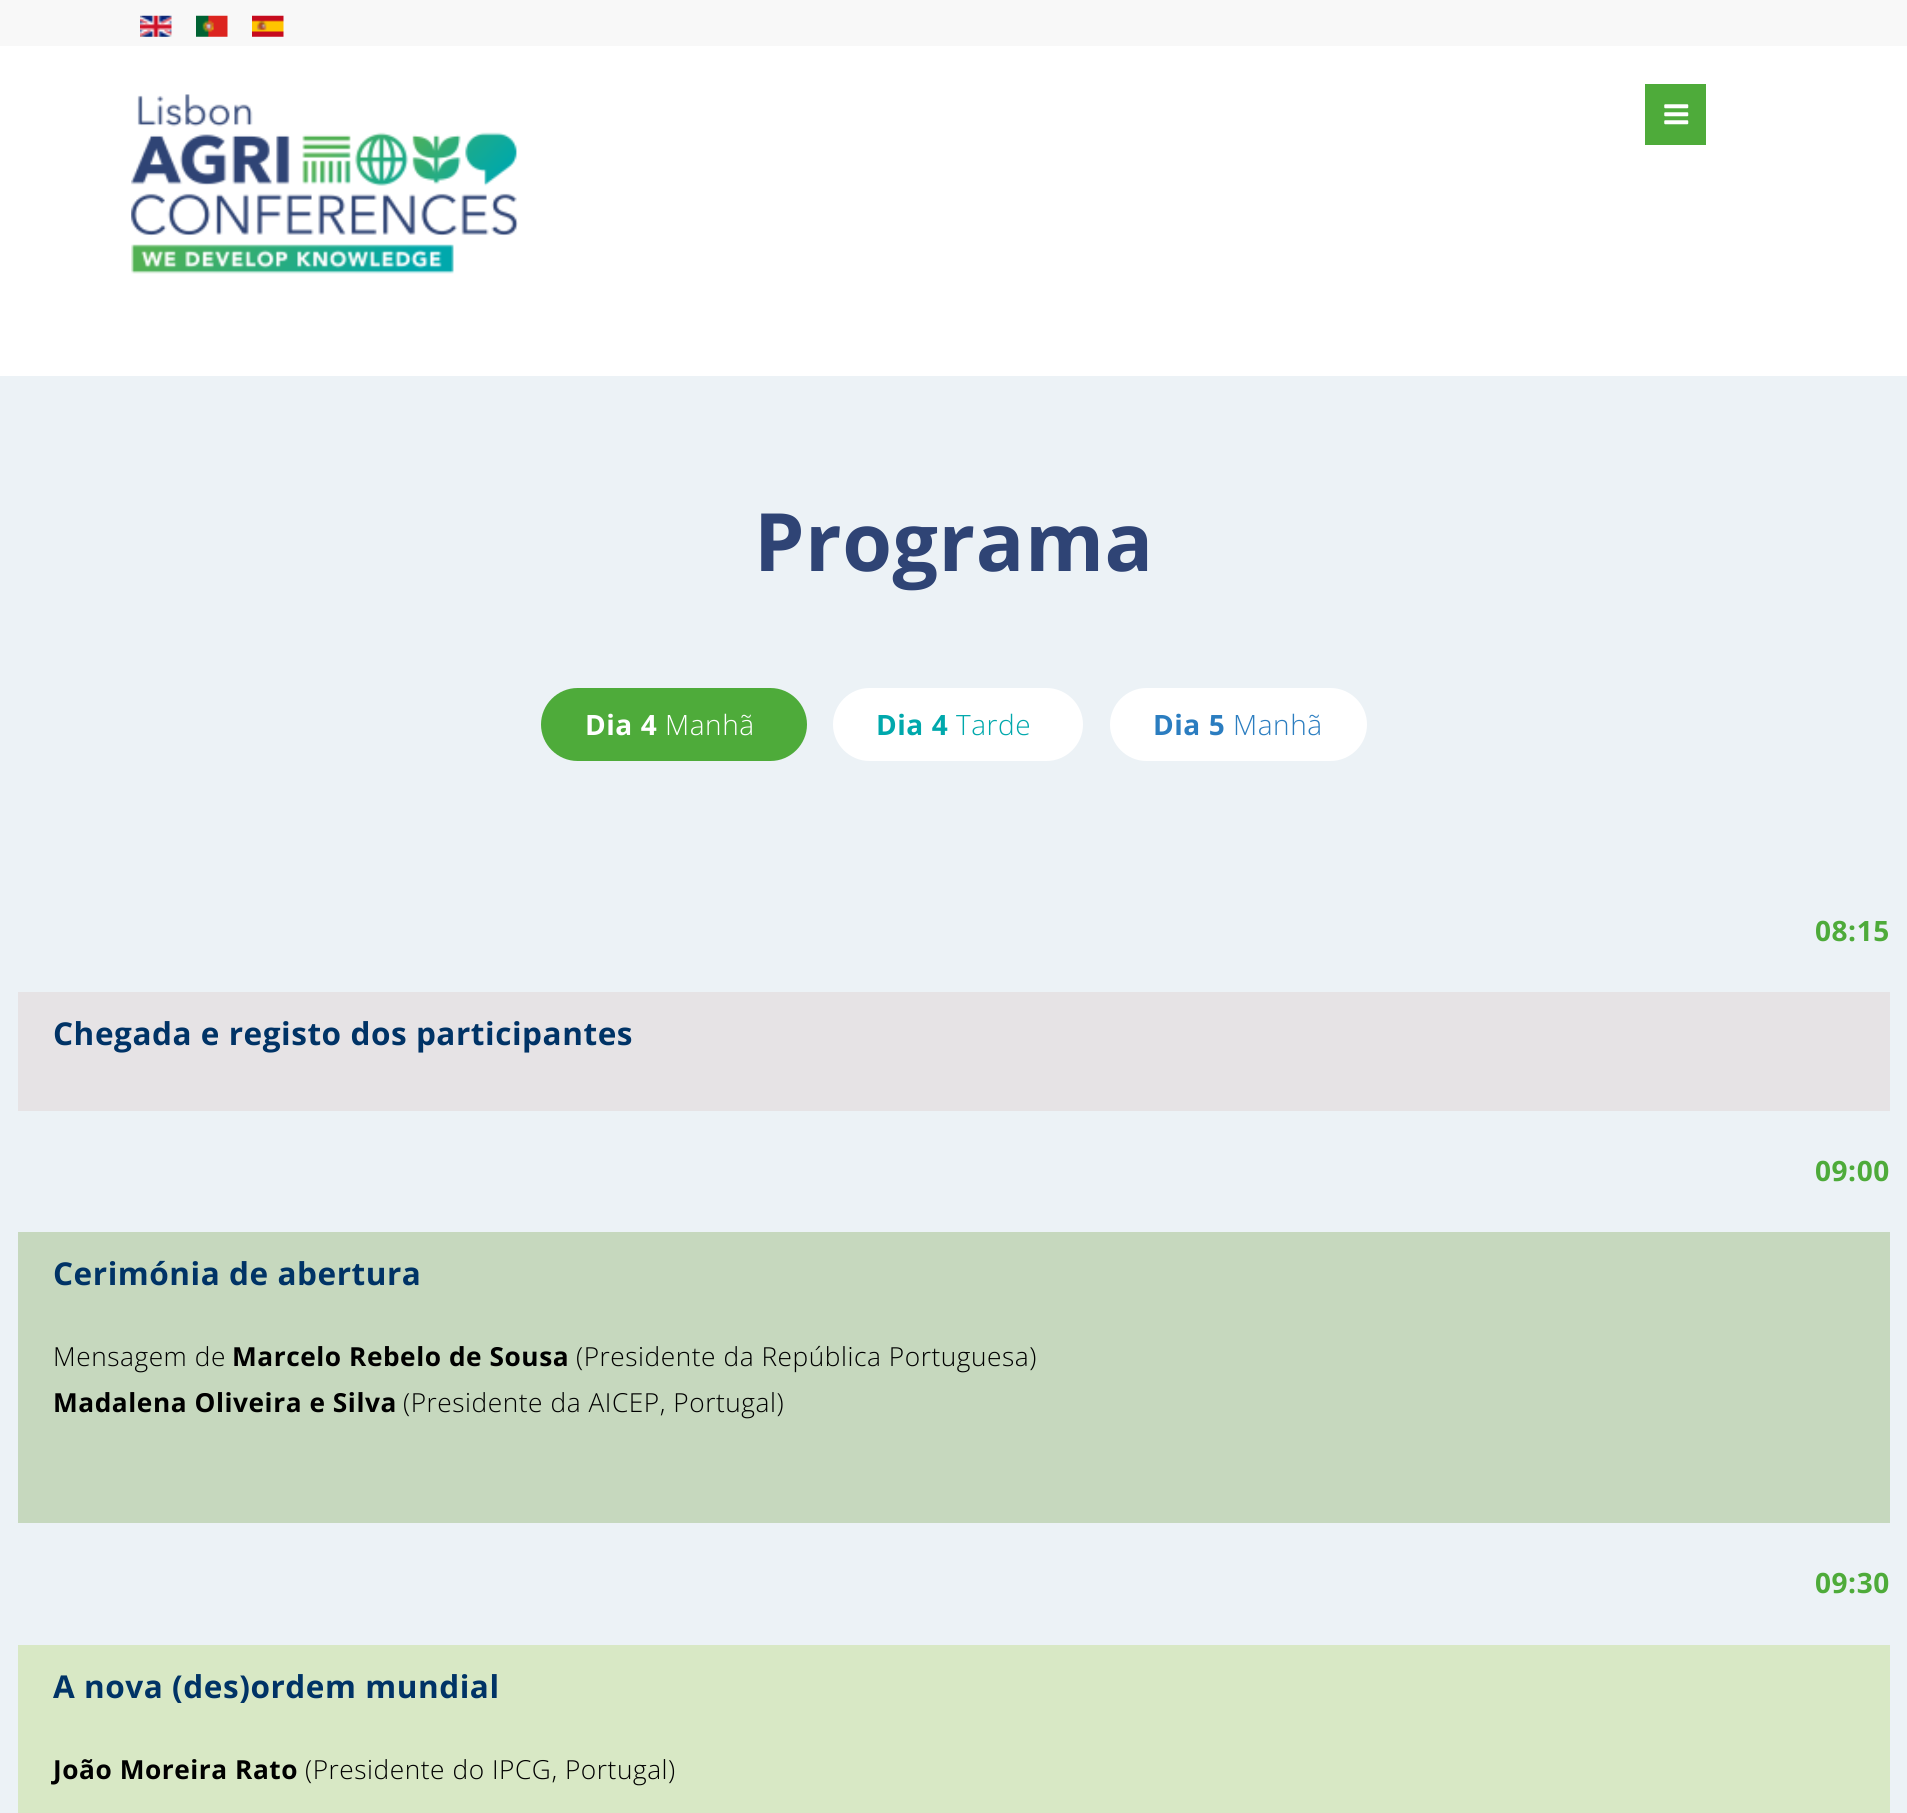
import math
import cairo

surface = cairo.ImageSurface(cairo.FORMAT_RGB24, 1907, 1813)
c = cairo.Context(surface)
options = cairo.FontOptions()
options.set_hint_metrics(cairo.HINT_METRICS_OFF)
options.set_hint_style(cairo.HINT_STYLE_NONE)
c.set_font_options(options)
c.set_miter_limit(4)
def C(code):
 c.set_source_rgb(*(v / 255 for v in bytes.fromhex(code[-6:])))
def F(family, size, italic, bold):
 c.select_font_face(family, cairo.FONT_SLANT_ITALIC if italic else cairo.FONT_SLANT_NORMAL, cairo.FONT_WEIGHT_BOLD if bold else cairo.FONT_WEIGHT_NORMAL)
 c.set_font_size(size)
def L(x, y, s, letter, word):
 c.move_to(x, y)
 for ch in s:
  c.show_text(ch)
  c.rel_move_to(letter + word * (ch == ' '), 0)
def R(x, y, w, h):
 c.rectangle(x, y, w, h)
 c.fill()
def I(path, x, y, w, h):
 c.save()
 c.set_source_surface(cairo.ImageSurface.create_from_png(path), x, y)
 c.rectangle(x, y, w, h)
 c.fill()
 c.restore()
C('ecf2f6')
c.paint()
C('f8f8f8')
R(0,0,1907,46)
C('ffffff')
R(0,46,1907,330)
I('1.png',140,15,32,22)
I('2.png',196,15,32,22)
I('3.png',252,15,32,22)
I('4.png',131,94,387,180)
C('4eab3a')
R(1645,84,61,61)
I('5.png',1664,104,25,21)
F('Open Sans',80.5,0,1)
C('2f4475')
L(754,571,'Programa',.55,0)
C('4eab3a')
c.new_path()
c.move_to(577.5,688)
c.line_to(658,688)
c.line_to(658,761)
c.line_to(577.5,761)
c.curve_to(557.5,761,541,744.5,541,724.5)
c.curve_to(541,704.5,557.5,688,577.5,688)
c.close_path()
c.fill()
F('Open Sans',28,0,1)
C('ffffff')
L(585,735,'Dia 4',.55,0)
C('4eab3a')
c.new_path()
c.move_to(658,688)
c.line_to(770.5,688)
c.curve_to(790.5,688,807,704.5,807,724.5)
c.curve_to(807,744.5,790.5,761,770.5,761)
c.line_to(658,761)
c.close_path()
c.fill()
F('Open Sans Light',28,0,0)
C('ffffff')
L(665,735,'Manhã',.55,0)
c.new_path()
c.move_to(869.5,688)
c.line_to(949,688)
c.line_to(949,761)
c.line_to(869.5,761)
c.curve_to(849.5,761,833,744.5,833,724.5)
c.curve_to(833,704.5,849.5,688,869.5,688)
c.close_path()
c.fill()
F('Open Sans',28,0,1)
C('00a8ac')
L(876,735,'Dia 4',.55,0)
C('ffffff')
c.new_path()
c.move_to(949,688)
c.line_to(1046.5,688)
c.curve_to(1066.5,688,1083,704.5,1083,724.5)
c.curve_to(1083,744.5,1066.5,761,1046.5,761)
c.line_to(949,761)
c.close_path()
c.fill()
F('Open Sans Light',28,0,0)
C('00a8ac')
L(956,735,'Tarde',.55,0)
C('ffffff')
c.new_path()
c.move_to(1146.5,688)
c.line_to(1225,688)
c.line_to(1225,761)
c.line_to(1146.5,761)
c.curve_to(1126.5,761,1110,744.5,1110,724.5)
c.curve_to(1110,704.5,1126.5,688,1146.5,688)
c.close_path()
c.fill()
F('Open Sans',28,0,1)
C('2b7dc0')
L(1153,735,'Dia 5',.55,0)
C('ffffff')
c.new_path()
c.move_to(1225,688)
c.line_to(1330.5,688)
c.curve_to(1350.5,688,1367,704.5,1367,724.5)
c.curve_to(1367,744.5,1350.5,761,1330.5,761)
c.line_to(1225,761)
c.close_path()
c.fill()
F('Open Sans Light',28,0,0)
C('2b7dc0')
L(1233,735,'Manhã',.55,0)
F('Open Sans',28,0,1)
C('4eab3a')
L(1815,941,'08:15',.55,0)
C('e6e3e5')
R(18,992,1872,119)
F('Open Sans',31.5,0,1)
C('003366')
L(53,1045,'Chegada e registo dos participantes',.55,0)
F('Open Sans',28,0,1)
C('4eab3a')
L(1815,1181,'09:00',.55,0)
C('c6d8be')
R(18,1232,1872,291)
F('Open Sans',31.5,0,1)
C('003366')
L(53,1285,'Cerimónia de abertura',.55,0)
F('Open Sans Light',26.25,0,0)
C('000000')
L(53,1366,'Mensagem de',.55,0)
F('Open Sans',26.25,0,1)
L(232,1366,'Marcelo Rebelo de Sousa',.55,0)
F('Open Sans Light',26.25,0,0)
L(576,1366,'(Presidente da República Portuguesa)',.55,0)
F('Open Sans',26.25,0,1)
L(53,1412,'Madalena Oliveira e Silva',.55,0)
F('Open Sans Light',26.25,0,0)
L(403,1412,'(Presidente da AICEP, Portugal)',.55,0)
F('Open Sans',28,0,1)
C('4eab3a')
L(1815,1593,'09:30',.55,0)
C('d8e8c5')
R(18,1645,1872,168)
F('Open Sans',31.5,0,1)
C('003366')
L(53,1698,'A nova (des)ordem mundial',.55,0)
F('Open Sans',26.25,0,1)
C('000000')
L(53,1779,'João Moreira Rato',.55,0)
F('Open Sans Light',26.25,0,0)
L(305,1779,'(Presidente do IPCG, Portugal)',.55,0)
surface.write_to_png('o.png')
